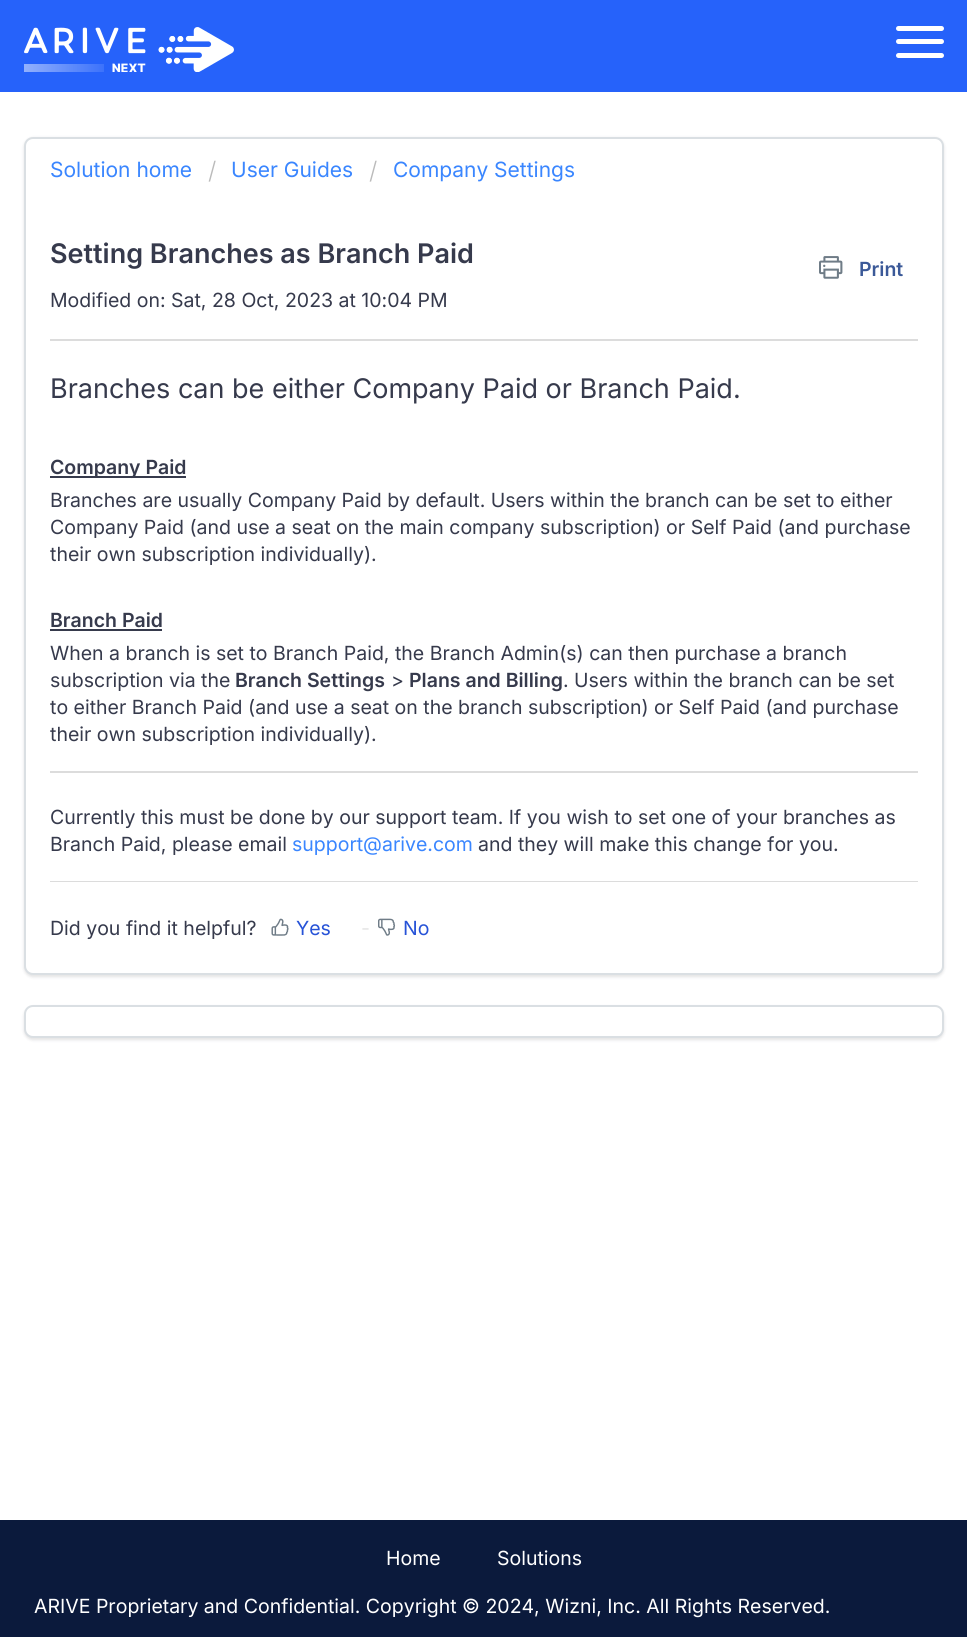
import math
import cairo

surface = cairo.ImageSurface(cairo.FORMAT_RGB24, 967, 1637)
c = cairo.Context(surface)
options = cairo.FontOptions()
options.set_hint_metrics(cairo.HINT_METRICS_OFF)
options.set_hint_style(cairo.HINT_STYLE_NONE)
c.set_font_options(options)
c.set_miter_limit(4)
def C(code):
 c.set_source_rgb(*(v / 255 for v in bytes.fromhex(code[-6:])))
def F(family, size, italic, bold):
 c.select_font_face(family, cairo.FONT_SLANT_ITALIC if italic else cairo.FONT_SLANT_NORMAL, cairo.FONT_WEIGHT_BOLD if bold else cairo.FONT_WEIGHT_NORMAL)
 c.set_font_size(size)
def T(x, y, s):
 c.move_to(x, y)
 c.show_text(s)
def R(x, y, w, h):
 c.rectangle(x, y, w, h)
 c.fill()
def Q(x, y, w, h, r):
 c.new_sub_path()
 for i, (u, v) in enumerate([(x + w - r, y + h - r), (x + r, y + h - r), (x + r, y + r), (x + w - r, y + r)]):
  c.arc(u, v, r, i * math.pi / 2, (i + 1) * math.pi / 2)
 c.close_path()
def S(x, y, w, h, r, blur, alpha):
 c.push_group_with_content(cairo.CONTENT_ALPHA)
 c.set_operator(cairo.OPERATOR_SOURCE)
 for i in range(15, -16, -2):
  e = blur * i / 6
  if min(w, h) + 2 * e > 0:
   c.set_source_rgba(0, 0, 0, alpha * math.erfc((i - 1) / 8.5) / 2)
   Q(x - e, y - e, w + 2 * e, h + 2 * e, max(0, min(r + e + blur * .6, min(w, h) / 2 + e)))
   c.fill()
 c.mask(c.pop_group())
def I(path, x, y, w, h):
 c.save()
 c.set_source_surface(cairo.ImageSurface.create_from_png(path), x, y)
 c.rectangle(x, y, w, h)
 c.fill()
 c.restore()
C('ffffff')
c.paint()
C('2662fa')
R(0,0,967,92)
I('1.png',24,27,210,45)
C('ffffff')
Q(896,26,48,5,2.5)
c.fill()
Q(896,39,48,5,2.5)
c.fill()
Q(896,53,48,5,2.5)
c.fill()
C('3f3f44')
S(24,138,920,839,9,1.5,.15)
C('ffffff')
Q(25,138,918,836,8)
c.fill_preserve()
C('dadfe3')
c.stroke()
F('Inter',21,0,0)
C('3a86ff')
T(50,177,'Solution home')
F('Inter Light',24,0,0)
C('bbbbbb')
T(208,179,'/')
F('Inter',21,0,0)
C('3a86ff')
T(231,177,'User Guides')
F('Inter Light',24,0,0)
C('bbbbbb')
T(369,179,'/')
F('Inter',21,0,0)
C('3a86ff')
T(393,177,'Company Settings')
F('Inter SemiBold',27,0,0)
C('363a4c')
T(50,263,'Setting Branches as Branch Paid')
I('2.png',819,256,24,23)
F('Inter SemiBold',19.5,0,0)
C('3b5998')
T(859,276,'Print')
F('Inter',19.5,0,0)
C('363a4c')
T(50,307,'Modified on: Sat, 28 Oct, 2023 at 10:04 PM')
C('dcdcdc')
R(50,339,868,2)
F('Inter',27,0,0)
C('363a4c')
T(50,398,'Branches can be either Company Paid or Branch Paid.')
R(50,476,136,2)
F('Inter SemiBold',19.5,0,0)
T(50,474,'Company Paid')
F('Inter',19.5,0,0)
T(50,507,'Branches are usually Company Paid by default. Users within the branch can be set to either')
T(50,534,'Company Paid (and use a seat on the main company subscription) or Self Paid (and purchase')
T(50,561,'their own subscription individually).')
F('Inter SemiBold',19.5,0,0)
T(50,627,'Branch Paid')
R(50,629,112,2)
F('Inter',19.5,0,0)
T(50,660,'When a branch is set to Branch Paid, the Branch Admin(s) can then purchase a branch')
T(50,687,'subscription via the')
F('Inter SemiBold',19.5,0,0)
T(235,687,'Branch Settings')
F('Inter',19.5,0,0)
T(391,687,'>')
F('Inter SemiBold',19.5,0,0)
T(409,687,'Plans and Billing')
F('Inter',19.5,0,0)
T(563,687,'. Users within the branch can be set')
T(50,714,'to either Branch Paid (and use a seat on the branch subscription) or Self Paid (and purchase')
T(50,741,'their own subscription individually).')
C('dcdcdc')
R(50,771,868,2)
C('363a4c')
T(50,824,'Currently this must be done by our support team. If you wish to set one of your branches as')
T(50,851,'Branch Paid, please email')
C('3a86ff')
T(292,851,'support@arive.com')
C('363a4c')
T(478,851,'and they will make this change for you.')
C('dcdcdc')
R(50,881,868,1)
C('363a4c')
T(50,935,'Did you find it helpful?')
I('3.png',271,918,18,18)
C('2753d7')
T(296,935,'Yes')
C('e5e5e5')
T(361,935,'-')
I('4.png',378,918,18,18)
C('2753d7')
T(403,935,'No')
C('3f3f44')
S(24,1007,920,33,9,1.5,.15)
C('ffffff')
Q(25,1006,918,31,8)
c.fill_preserve()
C('dadfe3')
c.stroke()
C('0b1a3c')
R(0,1520,967,117)
C('ffffff')
T(386,1565,'Home')
T(497,1565,'Solutions')
T(34,1613,'ARIVE Proprietary and Confidential. Copyright © 2024, Wizni, Inc. All Rights Reserved.')
surface.write_to_png('o.png')
